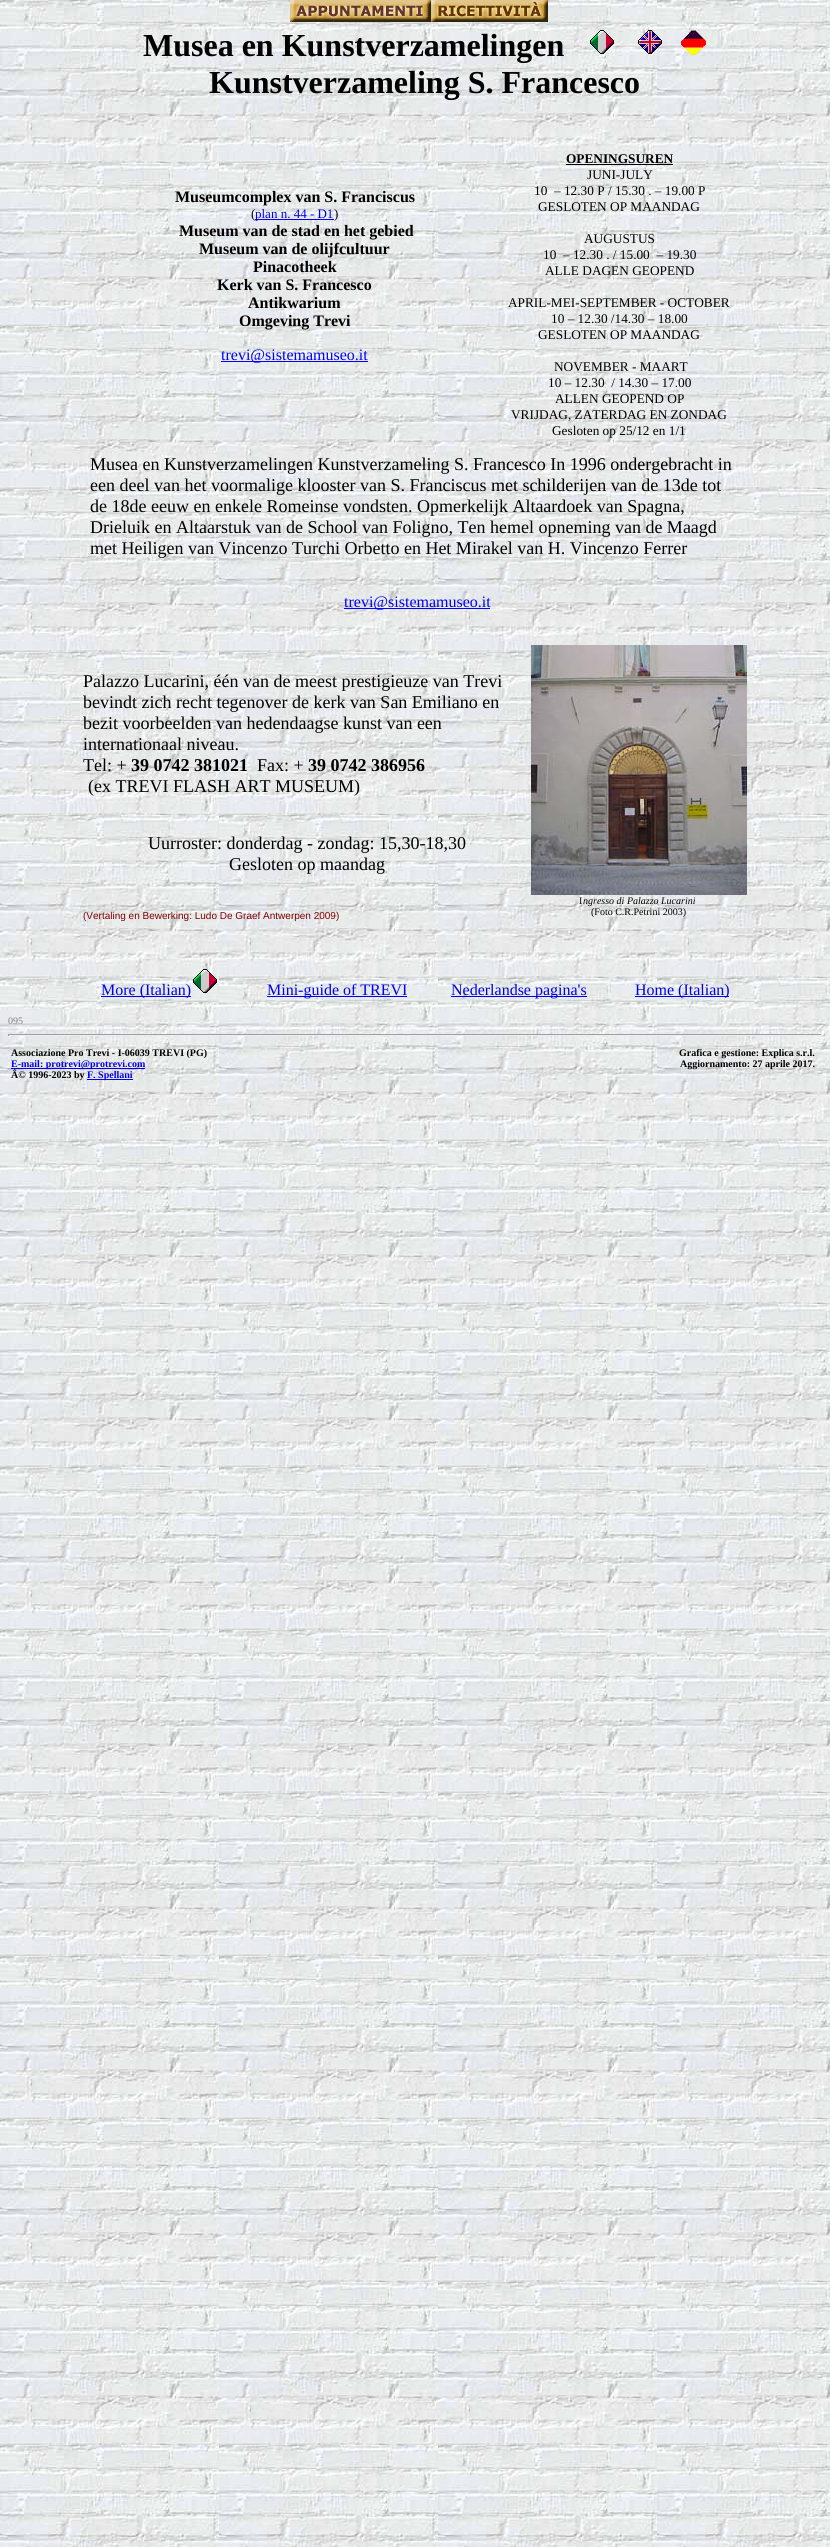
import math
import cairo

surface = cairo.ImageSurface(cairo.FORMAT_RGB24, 830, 2547)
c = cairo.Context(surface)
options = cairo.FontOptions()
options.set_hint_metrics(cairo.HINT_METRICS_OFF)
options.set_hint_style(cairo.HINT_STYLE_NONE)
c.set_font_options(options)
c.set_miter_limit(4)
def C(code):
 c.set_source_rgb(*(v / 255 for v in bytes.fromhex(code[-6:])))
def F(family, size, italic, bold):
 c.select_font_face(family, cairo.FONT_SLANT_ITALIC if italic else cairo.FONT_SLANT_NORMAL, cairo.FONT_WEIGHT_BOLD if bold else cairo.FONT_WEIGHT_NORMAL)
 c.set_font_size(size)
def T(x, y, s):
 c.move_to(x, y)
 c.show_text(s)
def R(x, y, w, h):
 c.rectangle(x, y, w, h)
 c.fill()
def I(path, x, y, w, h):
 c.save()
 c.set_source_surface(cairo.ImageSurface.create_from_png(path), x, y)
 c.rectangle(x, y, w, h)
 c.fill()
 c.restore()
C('ffffff')
c.paint()
I('1.png',0,0,830,2547)
I('2.png',290,0,141,22)
I('3.png',431,0,117,22)
F('Liberation Serif',32,0,1)
C('000000')
T(143,56,'Musea en Kunstverzamelingen')
I('4.png',590,30,24,24)
I('5.png',638,30,24,24)
I('6.png',681,30,25,25)
T(209,93,'Kunstverzameling S. Francesco')
F('Liberation Serif',16,0,1)
T(175,202,'Museumcomplex van S. Franciscus')
F('Liberation Serif',13,0,0)
T(251,218,'(')
C('0000ee')
R(255,219,79,1)
T(255,218,'plan n. 44 - D1')
C('000000')
T(334,218,')')
F('Liberation Serif',16,0,1)
T(179,236,'Museum van de stad en het gebied')
T(199,254,'Museum van de olijfcultuur')
T(253,272,'Pinacotheek')
T(217,290,'Kerk van S. Francesco')
T(248,308,'Antikwarium')
T(239,326,'Omgeving Trevi')
C('0000ff')
R(221,361,147,1)
F('Liberation Serif',16,0,0)
T(221,360,'trevi@sistemamuseo.it')
F('Liberation Serif',13.3,0,1)
C('000000')
T(566,163,'OPENINGSUREN')
R(566,164,107,1)
F('Liberation Serif',13.3,0,0)
T(587,179,'JUNI-JULY')
T(534,195,'10  – 12.30 P / 15.30 . – 19.00 P')
T(538,211,'GESLOTEN OP MAANDAG')
T(584,243,'AUGUSTUS')
T(543,259,'10  – 12.30 . / 15.00  – 19.30')
T(545,275,'ALLE DAGEN GEOPEND')
T(508,307,'APRIL-MEI-SEPTEMBER - OCTOBER')
T(551,323,'10 – 12.30 /14.30 – 18.00')
T(538,339,'GESLOTEN OP MAANDAG')
T(554,371,'NOVEMBER - MAART')
T(548,387,'10 – 12.30  / 14.30 – 17.00')
T(555,403,'ALLEN GEOPEND OP')
T(511,419,'VRIJDAG, ZATERDAG EN ZONDAG')
T(552,435,'Gesloten op 25/12 en 1/1')
F('Liberation Serif',18,0,0)
T(90,470,'Musea en Kunstverzamelingen Kunstverzameling S. Francesco In 1996 ondergebracht in')
T(90,491,'een deel van het voormalige klooster van S. Franciscus met schilderijen van de 13de tot')
T(90,512,'de 18de eeuw en enkele Romeinse vondsten. Opmerkelijk Altaardoek van Spagna,')
T(90,533,'Drieluik en Altaarstuk van de School van Foligno, Ten hemel opneming van de Maagd')
T(90,554,'met Heiligen van Vincenzo Turchi Orbetto en Het Mirakel van H. Vincenzo Ferrer')
C('0000ff')
R(344,608,146,1)
F('Liberation Serif',16,0,0)
T(344,607,'trevi@sistemamuseo.it')
F('Liberation Serif',18,0,0)
C('000000')
T(83,687,'Palazzo Lucarini, één van de meest prestigieuze van Trevi')
T(83,708,'bevindt zich recht tegenover de kerk van San Emiliano en')
T(83,729,'bezit voorbeelden van hedendaagse kunst van een')
T(83,750,'internationaal niveau.')
T(83,771,'Tel: +')
F('Liberation Serif',18,0,1)
T(131,771,'39 0742 381021')
F('Liberation Serif',18,0,0)
T(257,771,'Fax: +')
F('Liberation Serif',18,0,1)
T(308,771,'39 0742 386956')
F('Liberation Serif',18,0,0)
T(88,792,'(ex TREVI FLASH ART MUSEUM)')
T(148,849,'Uurroster: donderdag - zondag: 15,30-18,30')
T(229,870,'Gesloten op maandag')
F('Liberation Sans',10,0,0)
C('800000')
T(83,919,'(Vertaling en Bewerking: Ludo De Graef Antwerpen 2009)')
I('7.png',531,645,216,250)
F('Liberation Serif',10,0,0)
C('000000')
T(579,904,'I')
F('Liberation Serif',10,1,0)
T(583,904,'ngresso di Palazzo Lucarini')
F('Liberation Serif',10,0,0)
T(591,915,'(Foto C.R.Petrini 2003)')
C('0000ee')
R(101,996,90,1)
F('Liberation Serif',16,0,0)
T(101,995,'More (Italian)')
I('8.png',193,969,24,24)
R(267,996,140,1)
T(267,995,'Mini-guide of TREVI')
R(451,996,136,1)
T(451,995,'Nederlandse pagina\'s')
R(635,996,94,1)
T(635,995,'Home (Italian)')
F('Liberation Serif',10,0,0)
C('808080')
T(8,1024,'095')
C('9f9f9f')
R(8,1034,814,1)
C('eeeeee')
R(821,1034,1,2)
R(8,1035,814,1)
C('9f9f9f')
R(8,1034,1,2)
F('Liberation Serif',10,0,1)
C('000000')
T(11,1056,'Associazione Pro Trevi - I-06039 TREVI (PG)')
C('0000ee')
R(11,1068,134,1)
T(11,1067,'E-mail: protrevi@protrevi.com')
C('000000')
T(11,1078,'Â© 1996-2023 by')
C('0000ee')
R(87,1079,46,1)
T(87,1078,'F. Spellani')
C('000000')
T(679,1056,'Grafica e gestione: Explica s.r.l.')
T(680,1067,'Aggiornamento: 27 aprile 2017.')
surface.write_to_png('o.png')
